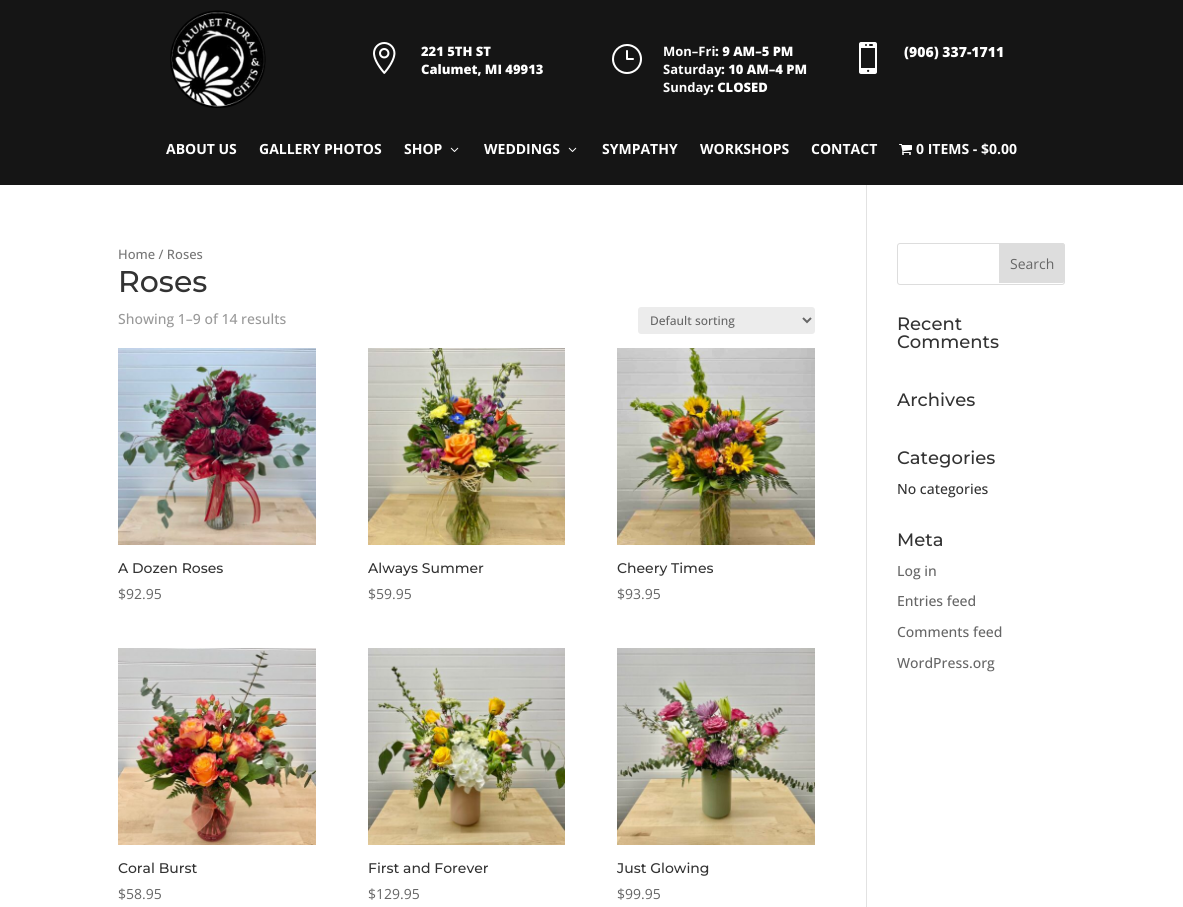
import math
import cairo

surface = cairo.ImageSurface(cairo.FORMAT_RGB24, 1183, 907)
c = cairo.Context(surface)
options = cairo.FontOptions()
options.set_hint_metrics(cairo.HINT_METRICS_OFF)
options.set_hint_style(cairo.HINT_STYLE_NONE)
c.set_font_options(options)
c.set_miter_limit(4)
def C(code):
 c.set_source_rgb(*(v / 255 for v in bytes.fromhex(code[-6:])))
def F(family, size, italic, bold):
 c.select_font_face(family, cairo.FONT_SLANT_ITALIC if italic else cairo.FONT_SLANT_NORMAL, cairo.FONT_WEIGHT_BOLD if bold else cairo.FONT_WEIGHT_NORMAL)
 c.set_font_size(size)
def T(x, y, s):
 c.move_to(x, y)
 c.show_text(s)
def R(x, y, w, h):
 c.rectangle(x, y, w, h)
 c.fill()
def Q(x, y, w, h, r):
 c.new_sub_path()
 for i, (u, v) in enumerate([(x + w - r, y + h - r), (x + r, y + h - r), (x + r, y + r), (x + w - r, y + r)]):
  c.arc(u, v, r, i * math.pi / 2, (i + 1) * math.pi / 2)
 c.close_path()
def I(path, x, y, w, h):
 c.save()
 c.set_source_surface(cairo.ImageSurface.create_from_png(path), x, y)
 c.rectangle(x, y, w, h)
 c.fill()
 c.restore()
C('ffffff')
c.paint()
C('151515')
R(0,0,1183,185)
I('1.png',170,10,96,98)
I('2.png',373,42,23,32)
F('Open Sans ExtraBold',13,0,0)
C('ffffff')
T(421,56,'221 5TH ST')
T(421,74,'Calumet, MI 49913')
I('3.png',612,44,30,30)
F('Open Sans',13,0,1)
T(663,56,'Mon–Fri')
F('Open Sans ExtraBold',13,0,0)
T(715,56,': 9 AM–5 PM')
F('Open Sans',13,0,1)
T(663,74,'Saturday')
F('Open Sans ExtraBold',13,0,0)
T(721,74,': 10 AM–4 PM')
F('Open Sans',13,0,1)
T(663,92,'Sunday')
F('Open Sans ExtraBold',13,0,0)
T(710,92,': CLOSED')
I('4.png',859,42,18,32)
F('Open Sans ExtraBold',14,0,0)
T(904,57,'(906) 337-1711')
F('Open Sans',14,0,1)
T(166,154,'ABOUT US')
T(259,154,'GALLERY PHOTOS')
T(404,154,'SHOP')
I('5.png',450,147,9,5)
T(484,154,'WEDDINGS')
I('5.png',568,147,9,5)
T(602,154,'SYMPATHY')
T(700,154,'WORKSHOPS')
T(811,154,'CONTACT')
I('6.png',899,144,13,11)
T(916,154,'0 ITEMS - $0.00')
C('e2e2e2')
R(866,185,1,722)
F('Open Sans Medium',13,0,0)
C('767676')
T(118,259,'Home / Roses')
F('Montserrat Thin',30,0,0)
C('333333')
T(118,292,'Roses')
F('Open Sans Medium',14,0,0)
C('999999')
T(118,324,'Showing 1–9 of 14 results')
C('ececec')
Q(638,307,177,27,3)
c.fill()
c.new_path()
c.move_to(803,318)
c.line_to(807,322)
c.line_to(811,318)
C('666666')
c.stroke()
F('Open Sans Medium',12,0,0)
T(650,325,'Default sorting')
I('7.png',118,348,198,197)
F('Montserrat Thin',14,0,0)
C('333333')
T(118,573,'A Dozen Roses')
F('Open Sans',14,0,0)
C('666666')
T(118,599,'$92.95')
I('8.png',368,348,197,197)
F('Montserrat Thin',14,0,0)
C('333333')
T(368,573,'Always Summer')
F('Open Sans',14,0,0)
C('666666')
T(368,599,'$59.95')
I('9.png',617,348,198,197)
F('Montserrat Thin',14,0,0)
C('333333')
T(617,573,'Cheery Times')
F('Open Sans',14,0,0)
C('666666')
T(617,599,'$93.95')
I('10.png',118,648,198,197)
F('Montserrat Thin',14,0,0)
C('333333')
T(118,873,'Coral Burst')
F('Open Sans',14,0,0)
C('666666')
T(118,899,'$58.95')
I('11.png',368,648,197,197)
F('Montserrat Thin',14,0,0)
C('333333')
T(368,873,'First and Forever')
F('Open Sans',14,0,0)
C('666666')
T(368,899,'$129.95')
I('12.png',617,648,198,197)
F('Montserrat Thin',14,0,0)
C('333333')
T(617,873,'Just Glowing')
F('Open Sans',14,0,0)
C('666666')
T(617,899,'$99.95')
Q(897.5,243.5,167,41,2.5)
C('dddddd')
c.set_line_width(1)
c.stroke()
c.new_path()
c.move_to(999.5,243.5)
c.line_to(1062,243.5)
c.curve_to(1063.5,243.5,1064.5,244.5,1064.5,246)
c.line_to(1064.5,280)
c.curve_to(1064.5,281.5,1063.5,282.5,1062,282.5)
c.line_to(999.5,282.5)
c.close_path()
c.fill_preserve()
c.stroke()
C('666666')
T(1010,269,'Search')
F('Montserrat Thin',18,0,0)
C('333333')
T(897,330,'Recent')
T(897,348,'Comments')
T(897,406,'Archives')
T(897,464,'Categories')
F('Open Sans Medium',14,0,0)
T(897,494,'No categories')
F('Montserrat Thin',18,0,0)
T(897,546,'Meta')
F('Open Sans Medium',14,0,0)
C('666666')
T(897,576,'Log in')
T(897,606,'Entries feed')
T(897,637,'Comments feed')
T(897,668,'WordPress.org')
surface.write_to_png('o.png')
